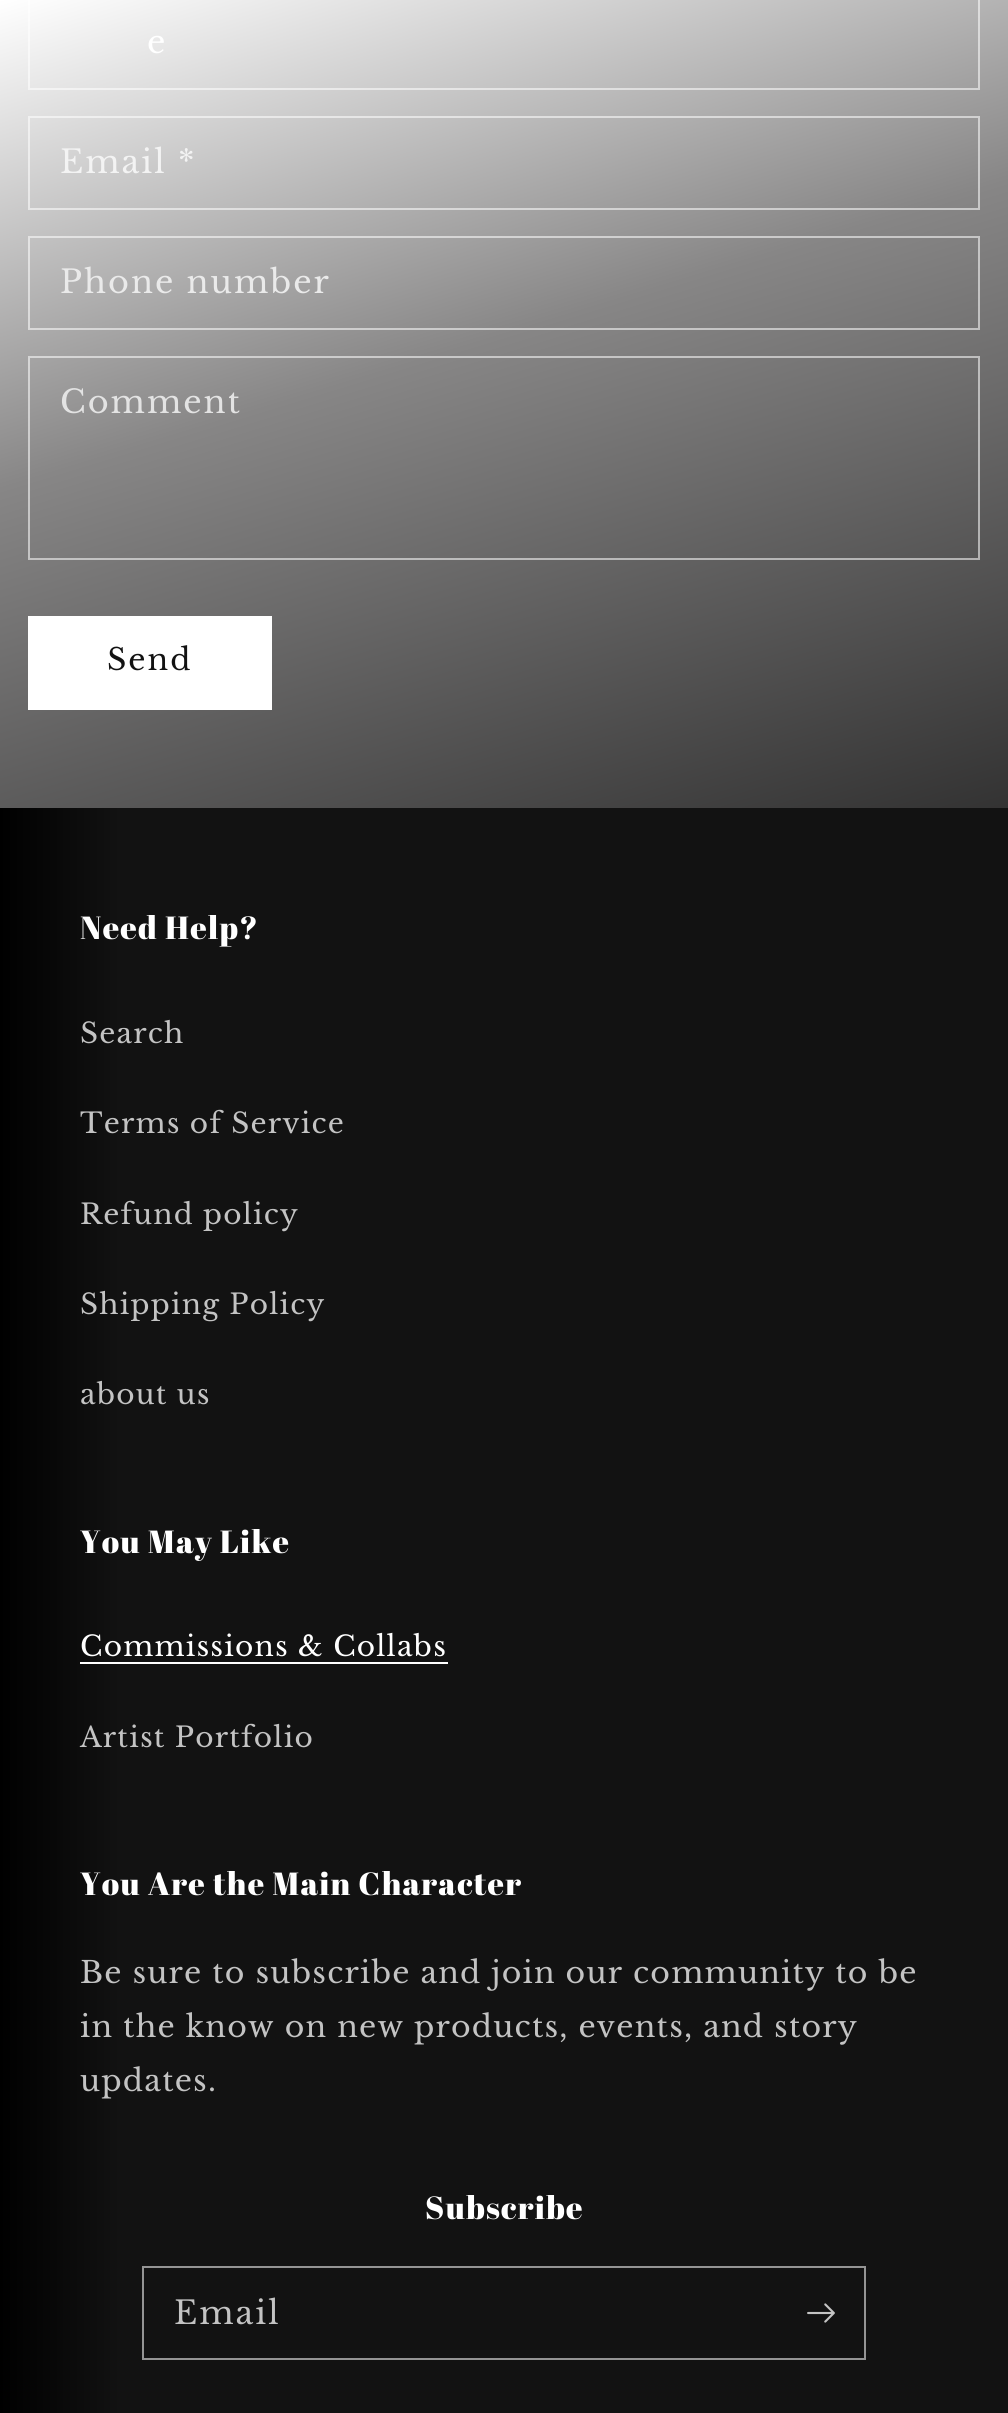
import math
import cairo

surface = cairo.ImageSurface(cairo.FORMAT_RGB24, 1008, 2413)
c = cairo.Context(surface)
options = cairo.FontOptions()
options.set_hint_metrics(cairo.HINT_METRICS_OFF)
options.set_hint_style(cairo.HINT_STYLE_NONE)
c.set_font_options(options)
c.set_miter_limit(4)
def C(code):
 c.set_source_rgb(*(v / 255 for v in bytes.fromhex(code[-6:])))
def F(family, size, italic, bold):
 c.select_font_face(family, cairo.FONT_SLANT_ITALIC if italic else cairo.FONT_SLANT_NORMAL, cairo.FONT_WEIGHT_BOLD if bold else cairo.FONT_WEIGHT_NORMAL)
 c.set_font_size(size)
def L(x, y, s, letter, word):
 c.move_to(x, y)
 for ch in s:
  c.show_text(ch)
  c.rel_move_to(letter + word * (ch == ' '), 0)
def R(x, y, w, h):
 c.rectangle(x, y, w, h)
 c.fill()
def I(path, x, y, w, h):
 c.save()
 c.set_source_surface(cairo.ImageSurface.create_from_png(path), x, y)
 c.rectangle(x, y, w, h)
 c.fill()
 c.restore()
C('ffffff')
c.paint()
gradient = cairo.LinearGradient(885,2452,123,-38)
gradient.add_color_stop_rgba(0,0,0,0,1)
gradient.add_color_stop_rgba(.45,0,0,0,1)
gradient.add_color_stop_rgba(.82,0.529,0.525,0.525,1)
gradient.add_color_stop_rgba(1,1,1,1,1)
c.set_source(gradient)
R(0,0,1008,808)
c.rectangle(29,-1,950,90)
c.set_source_rgba(1,1,1,0.55)
c.stroke()
F('Libre Baskerville',32,0,0)
C('ffffff')
L(147,53,'e',2,0)
c.rectangle(29,117,950,92)
c.set_source_rgba(1,1,1,0.55)
c.stroke()
C('f3f3f3')
L(60,173,'Email',2,0)
L(178,173,'*',2,0)
c.rectangle(29,237,950,92)
c.set_source_rgba(1,1,1,0.55)
c.stroke()
C('eaeaea')
L(60,293,'Phone number',2,0)
c.rectangle(29,357,950,202)
c.set_source_rgba(1,1,1,0.55)
c.stroke()
C('e3e3e3')
L(60,413,'Comment',2,0)
c.rectangle(29,617,242,92)
C('ffffff')
c.stroke()
R(30,618,240,90)
F('Libre Baskerville',30,0,0)
C('121212')
L(107,670,'Send',2,0)
gradient = cairo.LinearGradient(1008,1207,0,1207)
gradient.add_color_stop_rgba(.88,0.071,0.071,0.071,1)
gradient.add_color_stop_rgba(1,0,0,0,1)
c.set_source(gradient)
R(0,808,1008,1605)
F('Abril Fatface',32,0,0)
C('ffffff')
L(80,939,'Need Help?',1.2,0)
F('Libre Baskerville',28,0,0)
C('c3c3c3')
L(80,1043,'Search',1.2,0)
L(80,1133,'Terms of Service',1.2,0)
L(80,1224,'Refund policy',1.2,0)
L(80,1314,'Shipping Policy',1.2,0)
L(80,1404,'about us',1.2,0)
F('Abril Fatface',32,0,0)
C('ffffff')
L(80,1553,'You May Like',1.2,0)
F('Libre Baskerville',28,0,0)
L(80,1656,'Commissions & Collabs',1.2,0)
R(80,1662,368,2)
C('c3c3c3')
L(80,1747,'Artist Portfolio',1.2,0)
F('Abril Fatface',32,0,0)
C('ffffff')
L(80,1895,'You Are the Main Character',1.2,0)
F('Libre Baskerville',30,0,0)
C('c3c3c3')
L(80,1983,'Be sure to subscribe and join our community to be',1.2,0)
L(80,2037,'in the know on new products, events, and story',1.2,0)
L(80,2091,'updates.',1.2,0)
F('Abril Fatface',32,0,0)
C('ffffff')
L(425,2219,'Subscribe',1.2,0)
c.rectangle(143,2267,722,92)
C('949494')
c.stroke()
F('Libre Baskerville',32,0,0)
C('c3c3c3')
L(174,2324,'Email',2,0)
I('1.png',807,2303,28,20)
surface.write_to_png('o.png')
